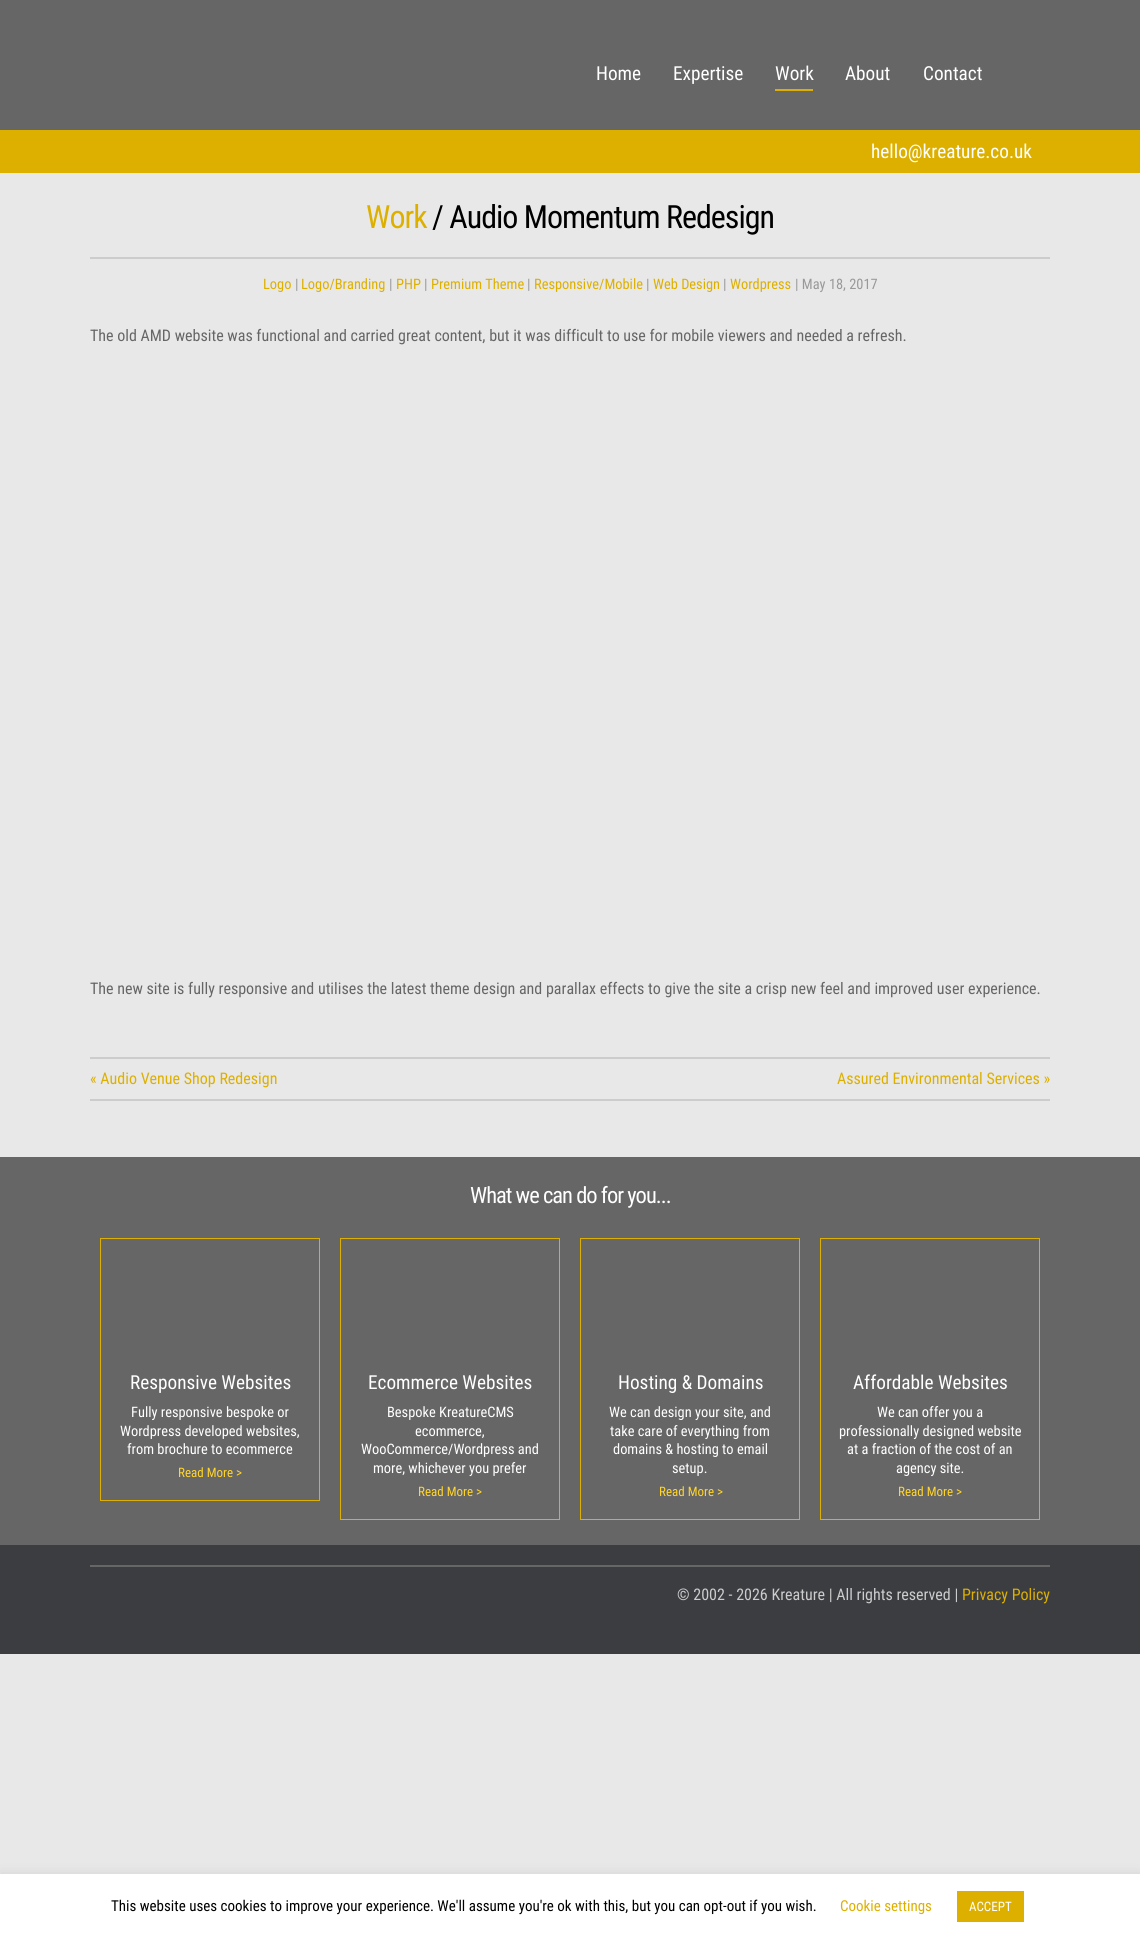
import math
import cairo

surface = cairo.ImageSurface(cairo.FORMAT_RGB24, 1140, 1939)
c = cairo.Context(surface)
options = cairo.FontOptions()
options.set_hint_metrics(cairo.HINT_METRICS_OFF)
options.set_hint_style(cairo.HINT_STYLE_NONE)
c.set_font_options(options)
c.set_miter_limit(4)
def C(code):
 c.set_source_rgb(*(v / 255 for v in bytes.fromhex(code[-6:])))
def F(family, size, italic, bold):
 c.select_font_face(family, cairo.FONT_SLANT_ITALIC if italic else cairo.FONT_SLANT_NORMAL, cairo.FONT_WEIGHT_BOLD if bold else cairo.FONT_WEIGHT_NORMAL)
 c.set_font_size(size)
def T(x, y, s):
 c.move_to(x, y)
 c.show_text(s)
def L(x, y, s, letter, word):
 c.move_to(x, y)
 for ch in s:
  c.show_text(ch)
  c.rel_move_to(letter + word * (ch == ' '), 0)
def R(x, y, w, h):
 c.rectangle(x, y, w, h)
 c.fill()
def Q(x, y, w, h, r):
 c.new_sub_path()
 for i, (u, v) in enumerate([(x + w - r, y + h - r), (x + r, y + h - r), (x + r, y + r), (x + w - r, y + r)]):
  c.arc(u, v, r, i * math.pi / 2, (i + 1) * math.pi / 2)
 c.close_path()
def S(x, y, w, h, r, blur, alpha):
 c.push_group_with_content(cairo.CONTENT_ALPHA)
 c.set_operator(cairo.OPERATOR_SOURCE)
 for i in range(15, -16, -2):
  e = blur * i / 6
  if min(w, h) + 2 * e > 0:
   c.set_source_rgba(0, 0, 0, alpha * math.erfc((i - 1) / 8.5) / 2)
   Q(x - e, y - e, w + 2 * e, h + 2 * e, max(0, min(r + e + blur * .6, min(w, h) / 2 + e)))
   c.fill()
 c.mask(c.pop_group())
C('e8e8e8')
c.paint()
C('666666')
R(0,0,1140,130)
F('Roboto Condensed',19.25,0,0)
C('ffffff')
T(596,80,'Home')
T(673,80,'Expertise')
C('ddb000')
R(775,89,38,2)
C('ffffff')
T(775,80,'Work')
T(845,80,'About')
T(923,80,'Contact')
C('ddb000')
R(0,130,1140,43)
C('ffffff')
T(871,158,'hello@kreature.co.uk')
F('Roboto Condensed',32,0,0)
C('ddb000')
L(366,228,'Work',-1,0)
C('000000')
L(432,228,'/ Audio Momentum Redesign',-1,0)
C('cccccc')
R(90,257,960,2)
F('Roboto Condensed',14.4,0,0)
C('ddb000')
T(263,289,'Logo')
C('999999')
T(295,289,'|')
C('ddb000')
T(301,289,'Logo/Branding')
C('999999')
T(389,289,'|')
C('ddb000')
T(396,289,'PHP')
C('999999')
T(424,289,'|')
C('ddb000')
T(431,289,'Premium Theme')
C('999999')
T(527,289,'|')
C('ddb000')
T(534,289,'Responsive/Mobile')
C('999999')
T(646,289,'|')
C('ddb000')
T(653,289,'Web Design')
C('999999')
T(723,289,'|')
C('ddb000')
T(730,289,'Wordpress')
C('999999')
T(795,289,'| May 18, 2017')
F('Roboto Condensed',16,0,0)
C('666666')
T(90,341,'The old AMD website was functional and carried great content, but it was difficult to use for mobile viewers and needed a refresh.')
T(90,994,'The new site is fully responsive and utilises the latest theme design and parallax effects to give the site a crisp new feel and improved user experience.')
C('cccccc')
R(90,1057,960,2)
R(90,1099,960,2)
C('ddb000')
T(90,1084,'« Audio Venue Shop Redesign')
T(837,1084,'Assured Environmental Services »')
C('666666')
R(0,1157,1140,388)
F('Roboto Condensed',22.5,0,0)
C('ffffff')
L(470,1203,'What we can do for you...',-1,0)
c.rectangle(100.5,1238.5,219,262)
C('ddb000')
c.set_line_width(1)
c.stroke()
F('Roboto Condensed',19.25,0,0)
C('ffffff')
T(130,1389,'Responsive Websites')
F('Roboto Condensed',14.4,0,0)
T(131,1417,'Fully responsive bespoke or')
T(120,1436,'Wordpress developed websites,')
T(127,1454,'from brochure to ecommerce')
F('Roboto Condensed',13,0,0)
C('ffd42b')
T(178,1477,'Read More >')
c.rectangle(340.5,1238.5,219,281)
C('ddb000')
c.stroke()
F('Roboto Condensed',19.25,0,0)
C('ffffff')
T(368,1389,'Ecommerce Websites')
F('Roboto Condensed',14.4,0,0)
T(387,1417,'Bespoke KreatureCMS')
T(415,1436,'ecommerce,')
T(361,1454,'WooCommerce/Wordpress and')
T(373,1473,'more, whichever you prefer')
F('Roboto Condensed',13,0,0)
C('ffd42b')
T(418,1496,'Read More >')
c.rectangle(580.5,1238.5,219,281)
C('ddb000')
c.stroke()
F('Roboto Condensed',19.25,0,0)
C('ffffff')
T(618,1389,'Hosting & Domains')
F('Roboto Condensed',14.4,0,0)
T(609,1417,'We can design your site, and')
T(610,1436,'take care of everything from')
T(613,1454,'domains & hosting to email')
T(672,1473,'setup.')
F('Roboto Condensed',13,0,0)
C('ffd42b')
T(659,1496,'Read More >')
c.rectangle(820.5,1238.5,219,281)
C('ddb000')
c.stroke()
F('Roboto Condensed',19.25,0,0)
C('ffffff')
T(853,1389,'Affordable Websites')
F('Roboto Condensed',14.4,0,0)
T(877,1417,'We can offer you a')
T(839,1436,'professionally designed website')
T(847,1454,'at a fraction of the cost of an')
T(896,1473,'agency site.')
F('Roboto Condensed',13,0,0)
C('ffd42b')
T(898,1496,'Read More >')
C('3b3d41')
R(0,1545,1140,109)
C('666666')
R(90,1565,960,2)
F('Roboto Condensed',16,0,0)
C('cccccc')
T(677,1600,'© 2002 - 2026 Kreature | All rights reserved |')
C('ddb000')
T(962,1600,'Privacy Policy')
C('acabab')
S(0,1873,1140,65,0,5,.3)
C('ffffff')
R(0,1874,1140,65)
F('Roboto Condensed',15,0,0)
C('000000')
T(111,1911,'This website uses cookies to improve your experience. We\'ll assume you\'re ok with this, but you can opt-out if you wish.')
C('ddb000')
T(840,1911,'Cookie settings')
R(957,1891,67,31)
F('Roboto Condensed',13,0,0)
C('ffffff')
T(969,1911,'ACCEPT')
surface.write_to_png('o.png')
